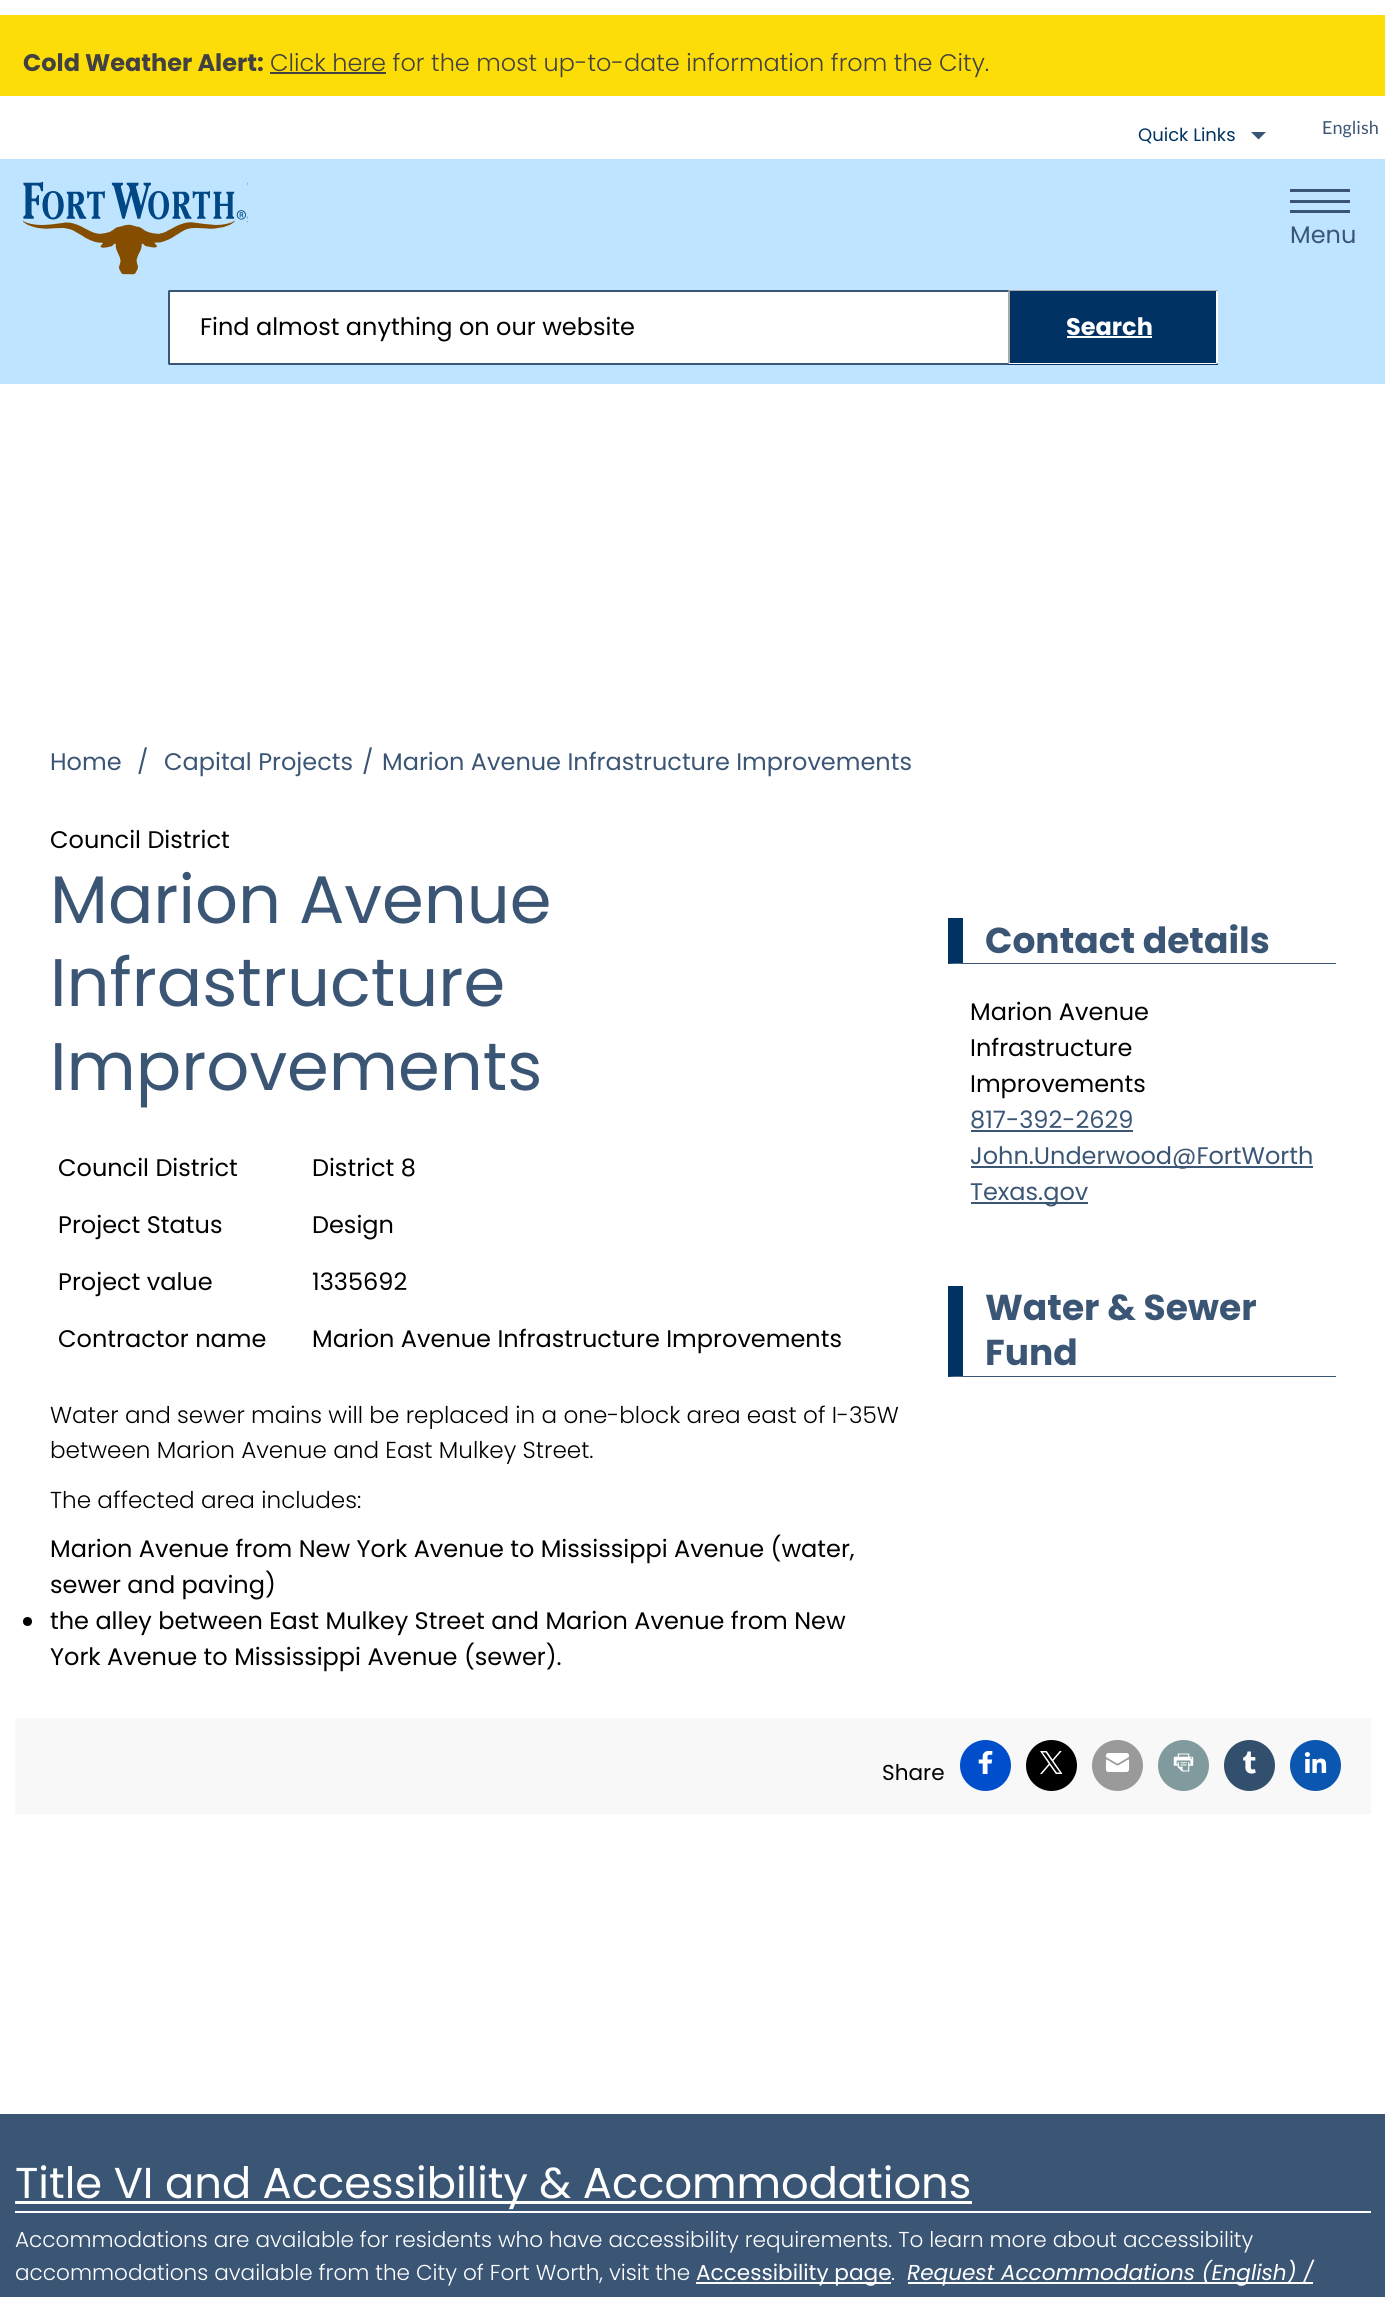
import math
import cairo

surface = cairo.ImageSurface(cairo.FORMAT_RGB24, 1385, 2297)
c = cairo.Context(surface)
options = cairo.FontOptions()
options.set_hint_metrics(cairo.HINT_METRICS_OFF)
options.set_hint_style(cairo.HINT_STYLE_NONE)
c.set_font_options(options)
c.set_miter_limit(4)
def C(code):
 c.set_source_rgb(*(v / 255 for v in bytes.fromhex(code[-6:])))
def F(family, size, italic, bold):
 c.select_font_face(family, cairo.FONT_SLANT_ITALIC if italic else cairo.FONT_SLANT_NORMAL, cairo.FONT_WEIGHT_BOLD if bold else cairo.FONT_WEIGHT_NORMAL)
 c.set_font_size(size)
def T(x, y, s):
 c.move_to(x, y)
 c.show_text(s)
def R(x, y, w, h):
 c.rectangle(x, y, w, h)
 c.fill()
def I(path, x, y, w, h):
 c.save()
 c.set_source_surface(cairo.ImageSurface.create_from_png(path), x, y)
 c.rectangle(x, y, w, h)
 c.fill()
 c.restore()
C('ffffff')
c.paint()
C('fddd07')
R(0,15,1385,81)
F('Poppins',24,0,1)
C('414042')
T(23,71,'Cold Weather Alert:')
R(270,72,116,2)
F('Poppins Light',24,0,0)
T(270,71,'Click here for the most up-to-date information from the City.')
F('Poppins',18,0,0)
C('003363')
T(1138,141,'Quick Links')
C('3b5675')
c.new_path()
c.move_to(1251,132)
c.line_to(1266,132)
c.line_to(1258.5,139.5)
c.close_path()
c.fill()
F('Lato',18,0,0)
T(1322,134,'English')
C('bfe4ff')
R(0,159,1385,225)
I('1.png',22,181,226,94)
C('3b5675')
R(1290,200,60,3)
R(1290,189,60,3)
R(1290,210,60,3)
F('Poppins',24,0,0)
T(1290,243,'Menu')
C('ffffff')
c.new_path()
c.move_to(169.5,291)
c.line_to(1217,291)
c.line_to(1217,364)
c.line_to(169.5,364)
c.curve_to(169,364,169,364,169,363.5)
c.line_to(169,291.5)
c.curve_to(169,291,169,291,169.5,291)
c.close_path()
c.fill_preserve()
C('3b5675')
c.stroke()
C('000000')
T(200,335,'Find almost anything on our website')
C('003363')
c.new_path()
c.move_to(1008,290)
c.line_to(1216.5,290)
c.curve_to(1217.5,290,1218,290.5,1218,291.5)
c.line_to(1218,363.5)
c.curve_to(1218,364.5,1217.5,365,1216.5,365)
c.line_to(1008,365)
c.close_path()
c.fill()
C('aaaaaa')
c.new_path()
c.move_to(1010,291)
c.line_to(1216,291)
c.line_to(1216,292)
c.line_to(1217,290)
c.line_to(1008,290)
c.line_to(1010,292)
c.close_path()
c.fill()
C('ffffff')
c.new_path()
c.move_to(1217,290)
c.line_to(1218,291)
c.line_to(1218,363)
c.line_to(1217,364)
c.line_to(1216,362)
c.line_to(1216,292)
c.close_path()
c.fill()
c.new_path()
c.move_to(1217,364)
c.line_to(1008,364)
c.line_to(1010,362)
c.line_to(1010,363)
c.line_to(1216,363)
c.line_to(1216,362)
c.close_path()
c.fill()
C('aaaaaa')
c.new_path()
c.move_to(1008,290)
c.line_to(1010,292)
c.line_to(1010,362)
c.line_to(1008,364)
c.close_path()
c.fill()
F('Poppins',24,0,1)
C('ffffff')
T(1066,335,'Search')
R(1067,336,85,2)
F('Poppins',24,0,0)
C('3b5675')
T(50,770,'Home')
T(137,770,'/')
T(164,770,'Capital Projects')
T(362,770,'/')
T(382,770,'Marion Avenue Infrastructure Improvements')
C('000000')
T(50,848,'Council District')
F('Poppins',67.25,0,0)
C('3b5675')
T(50,923,'Marion Avenue')
T(50,1006,'Infrastructure')
T(50,1090,'Improvements')
F('Poppins',24,0,0)
C('000000')
T(58,1176,'Council District')
T(312,1176,'District 8')
T(58,1233,'Project Status')
T(312,1233,'Design')
T(58,1290,'Project value')
T(312,1290,'1335692')
T(58,1347,'Contractor name')
T(312,1347,'Marion Avenue Infrastructure Improvements')
F('Poppins Light',23.1,0,0)
T(50,1423,'Water and sewer mains will be replaced in a one-block area east of I-35W')
T(50,1458,'between Marion Avenue and East Mulkey Street.')
T(50,1508,'The affected area includes:')
F('Poppins',24,0,0)
T(50,1557,'Marion Avenue from New York Avenue to Mississippi Avenue (water,')
T(50,1593,'sewer and paving)')
c.new_path()
c.arc(27.5,1621.5,4.5,0,2 * math.pi)
c.fill()
T(50,1629,'the alley between East Mulkey Street and Marion Avenue from New')
T(50,1665,'York Avenue to Mississippi Avenue (sewer).')
C('3b5675')
c.new_path()
c.move_to(1336,964)
c.line_to(948,964)
c.line_to(963,963)
c.line_to(1336,963)
c.close_path()
c.fill()
C('003363')
c.new_path()
c.move_to(948,964)
c.line_to(948,918)
c.line_to(963,918)
c.line_to(963,963)
c.close_path()
c.fill()
F('Poppins',36,0,1)
C('3b5675')
T(985,953,'Contact details')
F('Poppins',24,0,0)
C('000000')
T(970,1020,'Marion Avenue')
T(970,1056,'Infrastructure')
T(970,1092,'Improvements')
C('3b5675')
T(970,1128,'817-392-2629')
R(971,1130,162,2)
R(971,1166,342,2)
T(970,1164,'John.Underwood@FortWorth')
R(971,1202,117,2)
T(970,1200,'Texas.gov')
c.new_path()
c.move_to(1336,1377)
c.line_to(948,1377)
c.line_to(963,1376)
c.line_to(1336,1376)
c.close_path()
c.fill()
C('003363')
c.new_path()
c.move_to(948,1377)
c.line_to(948,1286)
c.line_to(963,1286)
c.line_to(963,1376)
c.close_path()
c.fill()
F('Poppins',36,0,1)
C('3b5675')
T(985,1320,'Water & Sewer')
T(985,1365,'Fund')
C('f8f8f8')
R(15,1718,1356,96)
F('Poppins',21.6,0,0)
C('000000')
T(882,1780,'Share')
C('004ecc')
c.new_path()
c.arc(985.5,1765.5,25.5,0,2 * math.pi)
c.fill()
I('2.png',978,1751,15,23)
C('000000')
c.arc(1051.5,1765.5,25.5,0,2 * math.pi)
c.fill()
I('3.png',1040,1751,23,23)
C('9b9a9a')
c.arc(1117.5,1765.5,25.5,0,2 * math.pi)
c.fill()
I('4.png',1105,1753,25,19)
C('809a9d')
c.arc(1183.5,1765.5,25.5,0,2 * math.pi)
c.fill()
I('5.png',1173,1753,21,19)
C('32506d')
c.arc(1249.5,1765.5,25.5,0,2 * math.pi)
c.fill()
I('6.png',1243,1751,13,23)
C('0b56b1')
c.arc(1315.5,1765.5,25.5,0,2 * math.pi)
c.fill()
I('7.png',1304,1752,23,21)
C('3b5675')
R(0,2114,1385,183)
C('ffffff')
R(15,2211,1356,2)
R(15,2201,957,3)
F('Poppins',43.2,0,0)
T(15,2198,'Title VI and Accessibility & Accommodations')
F('Poppins Light',21.6,0,0)
T(15,2247,'Accommodations are available for residents who have accessibility requirements. To learn more about accessibility')
T(15,2280,'accommodations available from the City of Fort Worth, visit the')
R(696,2282,195,2)
F('Poppins',21.6,0,0)
T(696,2280,'Accessibility page')
F('Poppins Light',21.6,0,0)
T(891,2280,'.')
R(908,2282,405,2)
F('Poppins',21.6,1,0)
T(907,2280,'Request Accommodations (English) /')
surface.write_to_png('o.png')
